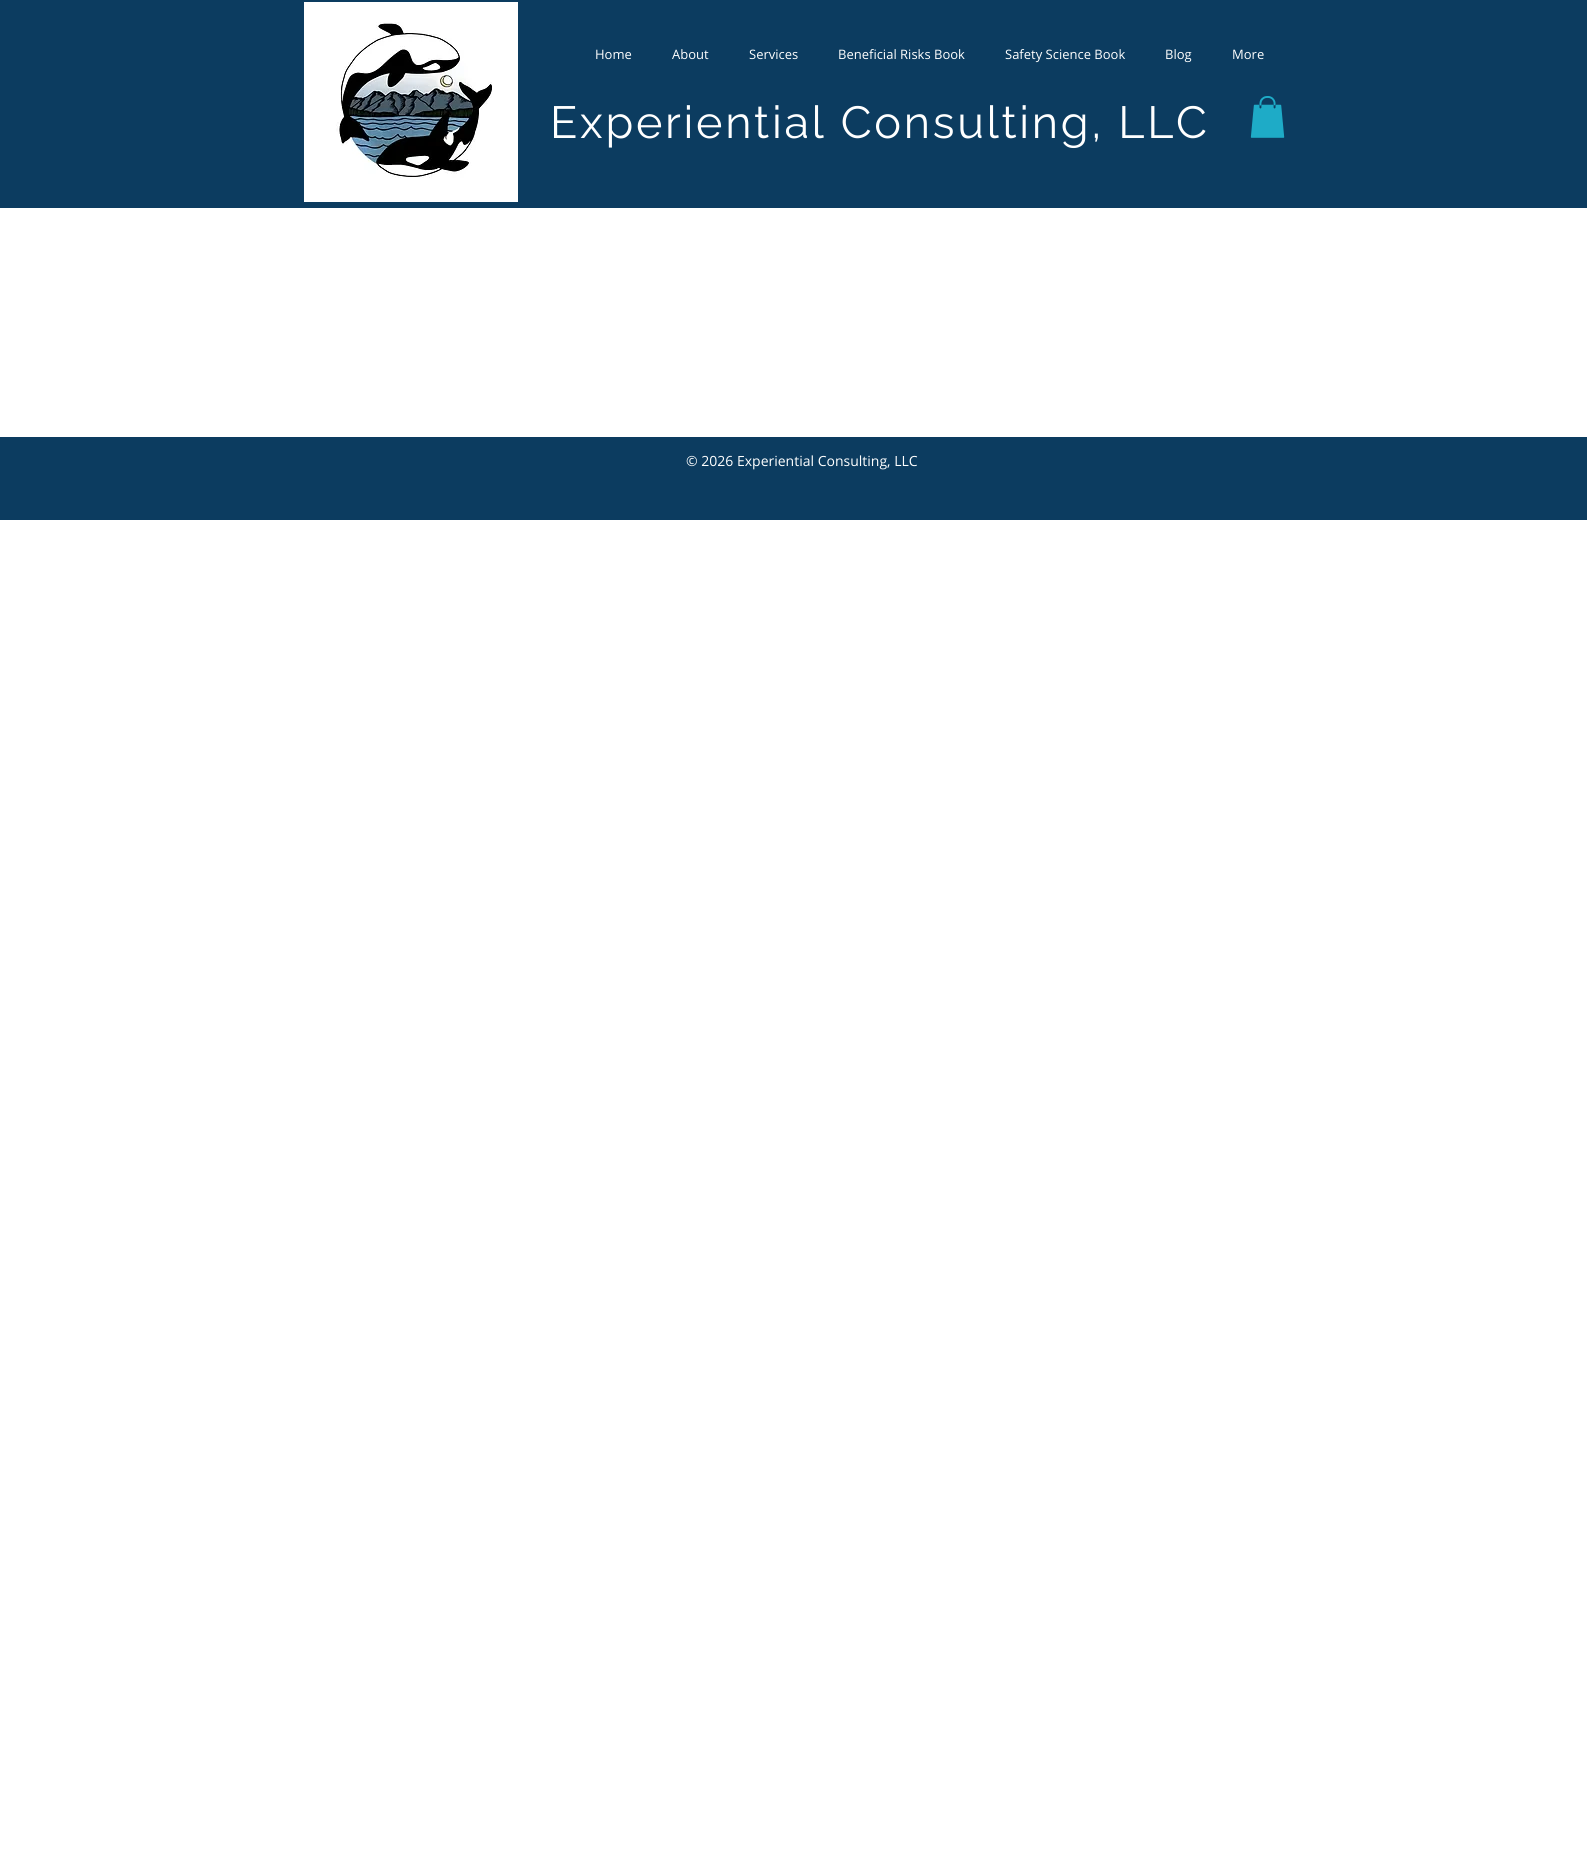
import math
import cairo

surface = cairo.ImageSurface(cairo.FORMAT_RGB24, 1587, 1876)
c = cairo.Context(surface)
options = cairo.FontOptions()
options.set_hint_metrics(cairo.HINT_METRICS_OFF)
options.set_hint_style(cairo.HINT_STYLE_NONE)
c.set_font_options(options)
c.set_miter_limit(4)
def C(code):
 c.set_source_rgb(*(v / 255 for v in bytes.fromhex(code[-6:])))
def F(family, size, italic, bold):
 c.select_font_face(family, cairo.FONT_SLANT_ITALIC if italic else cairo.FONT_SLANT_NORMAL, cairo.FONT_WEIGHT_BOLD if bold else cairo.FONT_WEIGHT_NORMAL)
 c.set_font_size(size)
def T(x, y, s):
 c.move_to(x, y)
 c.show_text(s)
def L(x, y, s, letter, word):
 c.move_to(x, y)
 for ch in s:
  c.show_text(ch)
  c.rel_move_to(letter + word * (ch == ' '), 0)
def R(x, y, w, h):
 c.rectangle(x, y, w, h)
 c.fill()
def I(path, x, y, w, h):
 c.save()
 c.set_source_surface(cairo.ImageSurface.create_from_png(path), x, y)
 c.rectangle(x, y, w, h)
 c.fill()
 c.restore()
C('ffffff')
c.paint()
C('0c3c60')
R(0,0,1587,208)
I('1.png',304,2,214,200)
F('Open Sans',13,0,0)
C('ffffff')
T(595,59,'Home')
T(672,59,'About')
T(749,59,'Services')
T(838,59,'Beneficial Risks Book')
T(1005,59,'Safety Science Book')
T(1165,59,'Blog')
T(1232,59,'More')
F('Raleway',45,0,0)
L(550,138,'Experiential Consulting, LLC',2.7,0)
I('2.png',1250,96,35,42)
C('0c3c60')
R(0,437,1587,83)
F('Open Sans',14,0,0)
C('ffffff')
T(686,466,'© 2026 Experiential Consulting, LLC')
surface.write_to_png('o.png')
